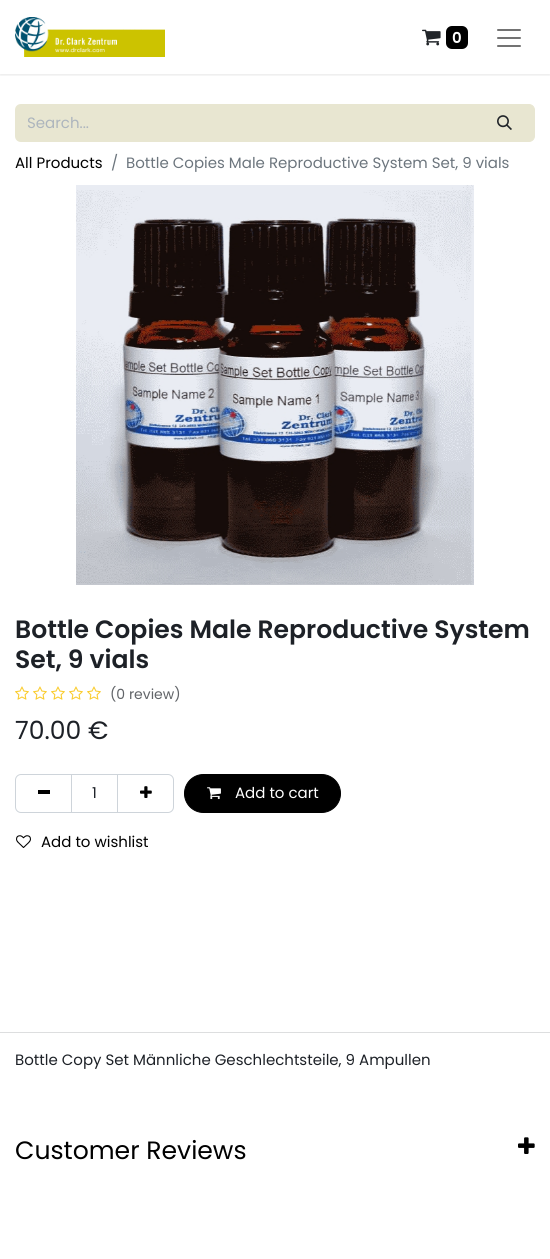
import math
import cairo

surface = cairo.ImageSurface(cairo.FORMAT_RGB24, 550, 1259)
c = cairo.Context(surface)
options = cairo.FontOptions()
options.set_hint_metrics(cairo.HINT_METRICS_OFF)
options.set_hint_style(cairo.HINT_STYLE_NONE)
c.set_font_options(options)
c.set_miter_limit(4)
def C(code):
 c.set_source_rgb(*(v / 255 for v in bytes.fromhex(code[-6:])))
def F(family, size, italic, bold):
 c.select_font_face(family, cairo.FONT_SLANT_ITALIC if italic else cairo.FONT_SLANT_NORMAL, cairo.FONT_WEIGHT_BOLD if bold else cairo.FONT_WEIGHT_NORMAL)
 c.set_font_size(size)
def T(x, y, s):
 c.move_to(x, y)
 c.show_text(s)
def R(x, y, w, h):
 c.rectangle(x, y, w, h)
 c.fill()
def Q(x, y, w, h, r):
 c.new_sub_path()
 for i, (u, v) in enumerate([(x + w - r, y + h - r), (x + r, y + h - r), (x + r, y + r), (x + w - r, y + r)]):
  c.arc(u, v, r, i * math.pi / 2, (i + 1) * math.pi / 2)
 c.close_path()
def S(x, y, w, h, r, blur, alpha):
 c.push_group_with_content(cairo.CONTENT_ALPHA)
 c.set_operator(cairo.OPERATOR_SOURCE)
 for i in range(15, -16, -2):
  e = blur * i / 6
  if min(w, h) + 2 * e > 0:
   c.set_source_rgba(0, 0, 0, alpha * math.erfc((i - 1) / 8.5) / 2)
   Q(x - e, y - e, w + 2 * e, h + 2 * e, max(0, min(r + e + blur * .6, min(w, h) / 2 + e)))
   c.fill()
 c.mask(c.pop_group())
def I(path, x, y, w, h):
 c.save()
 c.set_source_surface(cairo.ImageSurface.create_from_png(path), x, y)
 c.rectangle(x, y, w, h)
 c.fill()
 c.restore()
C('ffffff')
c.paint()
c.save()
c.rectangle(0,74,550,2)
c.clip()
C('000000')
S(0,1,550,74,0,1.5,.1)
c.restore()
I('1.png',15,17,150,40)
I('2.png',422,29,19,17)
C('000000')
Q(446,26,22,23,6)
c.fill()
F('Poppins SemiBold',15,0,0)
C('ffffff')
T(452,43,'0')
I('3.png',497,29,24,18)
C('e8e6d1')
c.new_path()
c.move_to(21,104)
c.line_to(476,104)
c.line_to(476,142)
c.line_to(21,142)
c.curve_to(17.5,142,15,139.5,15,136)
c.line_to(15,110)
c.curve_to(15,106.5,17.5,104,21,104)
c.close_path()
c.fill()
F('Poppins',15,0,0)
C('adb5bd')
T(27,128,'Search...')
C('e8e6d1')
c.new_path()
c.move_to(475.5,104.5)
c.line_to(529,104.5)
c.curve_to(532,104.5,534.5,107,534.5,110)
c.line_to(534.5,136)
c.curve_to(534.5,139,532,141.5,529,141.5)
c.line_to(475.5,141.5)
c.close_path()
c.fill_preserve()
c.set_line_width(1)
c.stroke()
I('4.png',497,115,15,15)
C('000000')
T(15,168,'All Products')
C('6c757d')
T(111,168,'/')
T(126,168,'Bottle Copies Male Reproductive System Set, 9 vials')
I('5.png',76,185,398,400)
F('Poppins SemiBold',25.1,0,0)
C('1d2127')
T(15,638,'Bottle Copies Male Reproductive System')
T(15,668,'Set, 9 vials')
I('6.png',15,686,14,14)
I('6.png',33,686,14,14)
I('6.png',51,686,14,14)
I('6.png',69,686,14,14)
I('6.png',87,686,14,14)
F('Poppins',14,0,0)
C('616468')
T(110,699,'(0 review)')
F('Poppins',25.1,0,0)
C('1d2127')
T(15,739,'70.00 €')
c.rectangle(71.5,774.5,46,38)
C('ced4da')
c.stroke()
c.new_path()
c.move_to(21,774.5)
c.line_to(71.5,774.5)
c.line_to(71.5,812.5)
c.line_to(21,812.5)
c.curve_to(18,812.5,15.5,810,15.5,807)
c.line_to(15.5,780)
c.curve_to(15.5,777,18,774.5,21,774.5)
c.close_path()
c.stroke()
C('000000')
R(38,790,12,4)
F('Poppins',15,0,0)
C('1d2127')
T(92,798,'1')
c.new_path()
c.move_to(117.5,774.5)
c.line_to(168,774.5)
c.curve_to(171,774.5,173.5,777,173.5,780)
c.line_to(173.5,807)
c.curve_to(173.5,810,171,812.5,168,812.5)
c.line_to(117.5,812.5)
c.close_path()
C('ced4da')
c.stroke()
I('7.png',140,786,12,12)
C('000000')
Q(184.5,774.5,156,38,19)
c.fill_preserve()
c.stroke()
I('8.png',207,787,14,13)
C('ffffff')
T(235,798,'Add to cart')
I('9.png',16,835,15,13)
C('000000')
T(41,847,'Add to wishlist')
C('dddedf')
R(0,1032,550,1)
C('1d2127')
T(15,1065,'Bottle Copy Set Männliche Geschlechtsteile, 9 Ampullen')
F('Poppins',25.1,0,0)
C('000000')
T(15,1159,'Customer Reviews')
I('10.png',518,1137,17,17)
surface.write_to_png('o.png')
